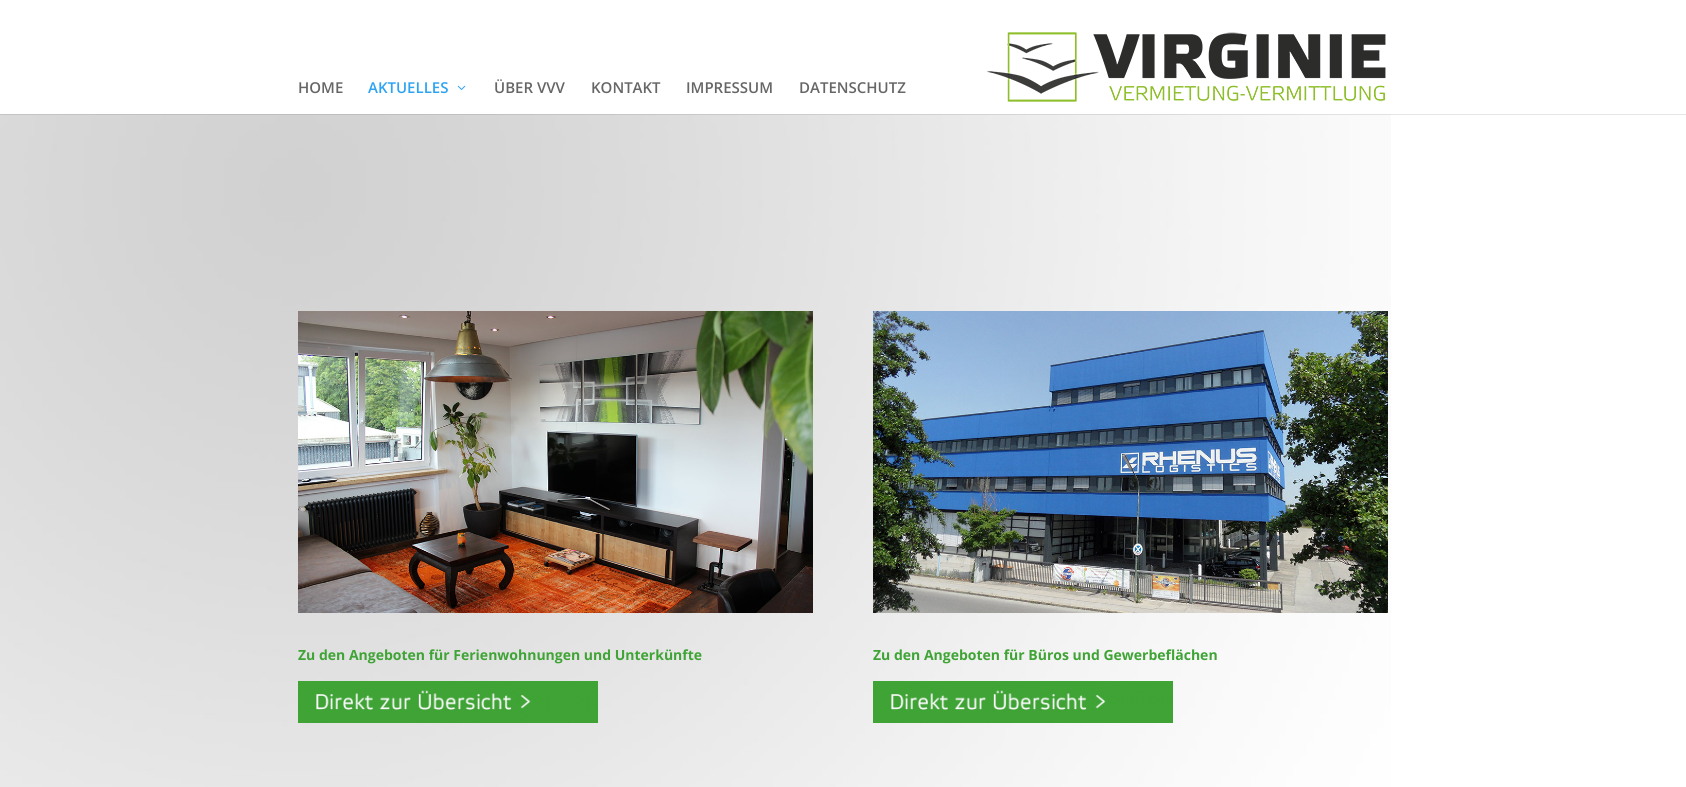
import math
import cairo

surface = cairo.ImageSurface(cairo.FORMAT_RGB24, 1686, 787)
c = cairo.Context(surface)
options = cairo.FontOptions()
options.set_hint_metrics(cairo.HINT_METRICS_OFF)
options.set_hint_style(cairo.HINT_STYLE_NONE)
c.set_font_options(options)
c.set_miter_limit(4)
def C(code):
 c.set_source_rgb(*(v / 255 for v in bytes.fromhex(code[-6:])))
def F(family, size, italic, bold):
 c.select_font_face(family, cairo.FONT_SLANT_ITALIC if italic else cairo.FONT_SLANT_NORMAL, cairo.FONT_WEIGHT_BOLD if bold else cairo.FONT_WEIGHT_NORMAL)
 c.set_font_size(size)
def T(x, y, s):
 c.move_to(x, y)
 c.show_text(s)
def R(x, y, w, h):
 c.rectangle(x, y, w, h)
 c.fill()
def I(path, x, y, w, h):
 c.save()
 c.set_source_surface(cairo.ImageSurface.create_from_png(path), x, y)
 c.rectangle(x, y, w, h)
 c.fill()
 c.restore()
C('ffffff')
c.paint()
I('3.png',0,114,1391,673)
c.set_source_rgba(0,0,0,0.1)
R(0,114,1686,1)
F('Open Sans SemiBold',15,0,0)
C('666666')
T(298,93,'HOME')
C('2ea3f2')
T(368,93,'AKTUELLES')
I('1.png',457,85,9,5)
C('666666')
T(494,93,'ÜBER VVV')
T(591,93,'KONTAKT')
T(686,93,'IMPRESSUM')
T(799,93,'DATENSCHUTZ')
I('2.png',987,32,399,70)
I('4.png',298,311,515,302)
F('Open Sans',14,0,1)
C('3fa435')
T(298,660,'Zu den Angeboten für Ferienwohnungen und Unterkünfte')
I('5.png',298,681,300,42)
I('6.png',873,311,515,302)
T(873,660,'Zu den Angeboten für Büros und Gewerbeflächen')
I('5.png',873,681,300,42)
surface.write_to_png('o.png')
